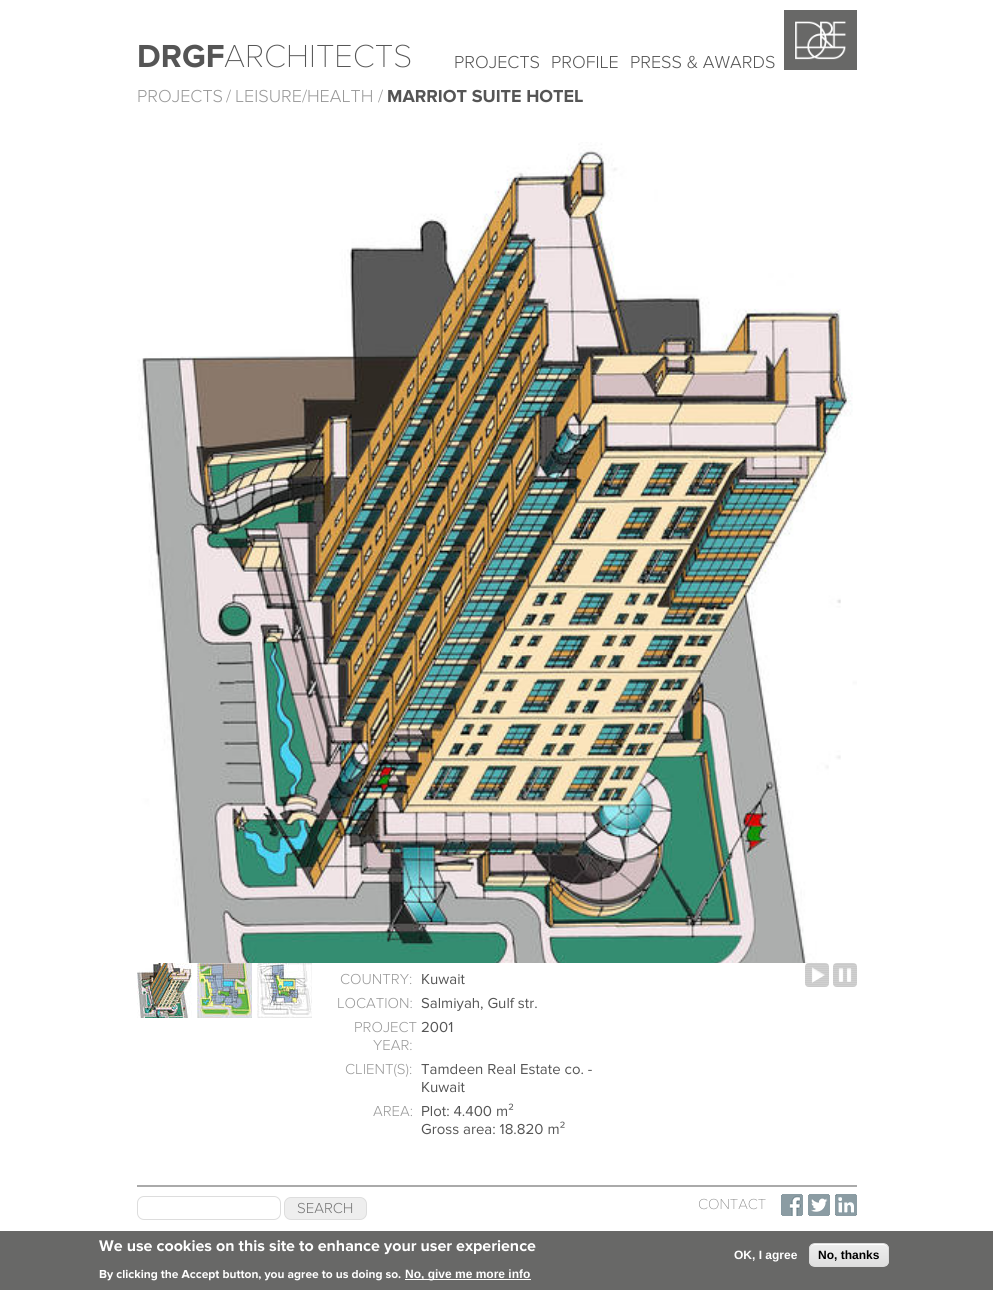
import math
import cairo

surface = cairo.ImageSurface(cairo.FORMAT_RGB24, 993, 1290)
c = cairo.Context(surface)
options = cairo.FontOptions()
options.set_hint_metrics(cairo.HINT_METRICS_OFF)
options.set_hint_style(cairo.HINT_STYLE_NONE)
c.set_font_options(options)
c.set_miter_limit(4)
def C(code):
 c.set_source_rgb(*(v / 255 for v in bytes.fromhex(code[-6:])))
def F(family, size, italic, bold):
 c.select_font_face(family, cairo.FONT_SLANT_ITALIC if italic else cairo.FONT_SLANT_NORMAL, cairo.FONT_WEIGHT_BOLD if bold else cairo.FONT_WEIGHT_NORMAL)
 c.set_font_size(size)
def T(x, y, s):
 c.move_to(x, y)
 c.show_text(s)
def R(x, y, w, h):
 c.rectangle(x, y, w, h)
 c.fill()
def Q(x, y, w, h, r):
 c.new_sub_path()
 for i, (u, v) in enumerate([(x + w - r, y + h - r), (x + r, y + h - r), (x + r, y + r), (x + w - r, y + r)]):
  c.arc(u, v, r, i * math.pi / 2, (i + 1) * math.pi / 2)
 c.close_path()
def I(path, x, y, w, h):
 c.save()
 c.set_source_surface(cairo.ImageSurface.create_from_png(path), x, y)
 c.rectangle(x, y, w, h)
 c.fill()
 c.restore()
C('ffffff')
c.paint()
F('Proxima Nova',33,0,1)
C('555555')
T(137,67,'DRGF')
F('Proxima Nova Thin',33,0,0)
T(224,67,'ARCHITECTS')
F('Proxima Nova Light',18,0,0)
T(454,68,'PROJECTS')
T(551,68,'PROFILE')
T(630,68,'PRESS & AWARDS')
I('1.png',784,10,73,60)
C('999999')
T(137,102,'PROJECTS')
T(226,102,'/')
T(235,102,'LEISURE/HEALTH')
T(378,102,'/')
F('Proxima Nova',18,0,1)
C('555555')
T(387,102,'MARRIOT SUITE HOTEL')
I('2.png',137,142,720,821)
I('3.png',137,963,55,55)
I('4.png',197,963,55,55)
I('5.png',257,963,55,55)
I('6.png',805,963,24,24)
I('7.png',833,963,24,24)
F('Proxima Nova Light',15,0,0)
C('999999')
T(340,984,'COUNTRY:')
F('Proxima Nova',15,0,0)
C('555555')
T(421,984,'Kuwait')
F('Proxima Nova Light',15,0,0)
C('999999')
T(337,1008,'LOCATION:')
F('Proxima Nova',15,0,0)
C('555555')
T(421,1008,'Salmiyah, Gulf str.')
F('Proxima Nova Light',15,0,0)
C('999999')
T(354,1032,'PROJECT')
T(373,1050,'YEAR:')
F('Proxima Nova',15,0,0)
C('555555')
T(421,1032,'2001')
F('Proxima Nova Light',15,0,0)
C('999999')
T(345,1074,'CLIENT(S):')
F('Proxima Nova',15,0,0)
C('555555')
T(421,1074,'Tamdeen Real Estate co. -')
T(421,1092,'Kuwait')
F('Proxima Nova Light',15,0,0)
C('999999')
T(373,1116,'AREA:')
F('Proxima Nova',15,0,0)
C('555555')
T(421,1116,'Plot: 4.400 m²')
T(421,1134,'Gross area: 18.820 m²')
C('aaaaaa')
R(137,1185,720,2)
Q(137.5,1196.5,143,23,6.5)
C('dddddd')
c.set_line_width(1)
c.stroke()
C('eeeeee')
Q(284.5,1197.5,82,22,6.5)
c.fill_preserve()
C('dddddd')
c.stroke()
F('Proxima Nova Light',15,0,0)
C('777777')
T(297,1213,'SEARCH')
F('Proxima Nova Thin',15,0,0)
T(698,1209,'CONTACT')
I('8.png',781,1194,22,22)
I('9.png',808,1194,22,22)
I('10.png',835,1194,22,22)
C('686867')
R(0,1231,993,59)
F('Proxima Nova',16,0,1)
C('ffffff')
T(99,1251,'We use cookies on this site to enhance your user experience')
F('Proxima Nova',12,0,1)
T(99,1278,'By clicking the Accept button, you agree to us doing so.')
R(405,1279,126,1)
F('Liberation Sans',12,0,1)
T(405,1278,'No, give me more info')
T(734,1259,'OK, I agree')
c.save()
Q(809,1243,80,24,6)
c.clip()
gradient = cairo.LinearGradient(849,1244,849,1266)
gradient.add_color_stop_rgba(.05,0.929,0.929,0.929,1)
gradient.add_color_stop_rgba(1,0.875,0.875,0.875,1)
c.set_source(gradient)
R(809,1244,80,22)
c.restore()
c.new_path()
c.move_to(815,1245)
c.line_to(883,1245)
c.curve_to(886,1245,888,1247,888,1250)
c.curve_to(888,1241,877,1244,872,1244)
c.line_to(826,1244)
c.curve_to(821,1244,810,1241,810,1250)
c.curve_to(810,1247,812,1245,815,1245)
c.close_path()
c.fill()
Q(809.5,1243.5,79,23,5.5)
C('dcdcdc')
c.stroke()
C('000000')
T(818,1259,'No, thanks')
surface.write_to_png('o.png')
